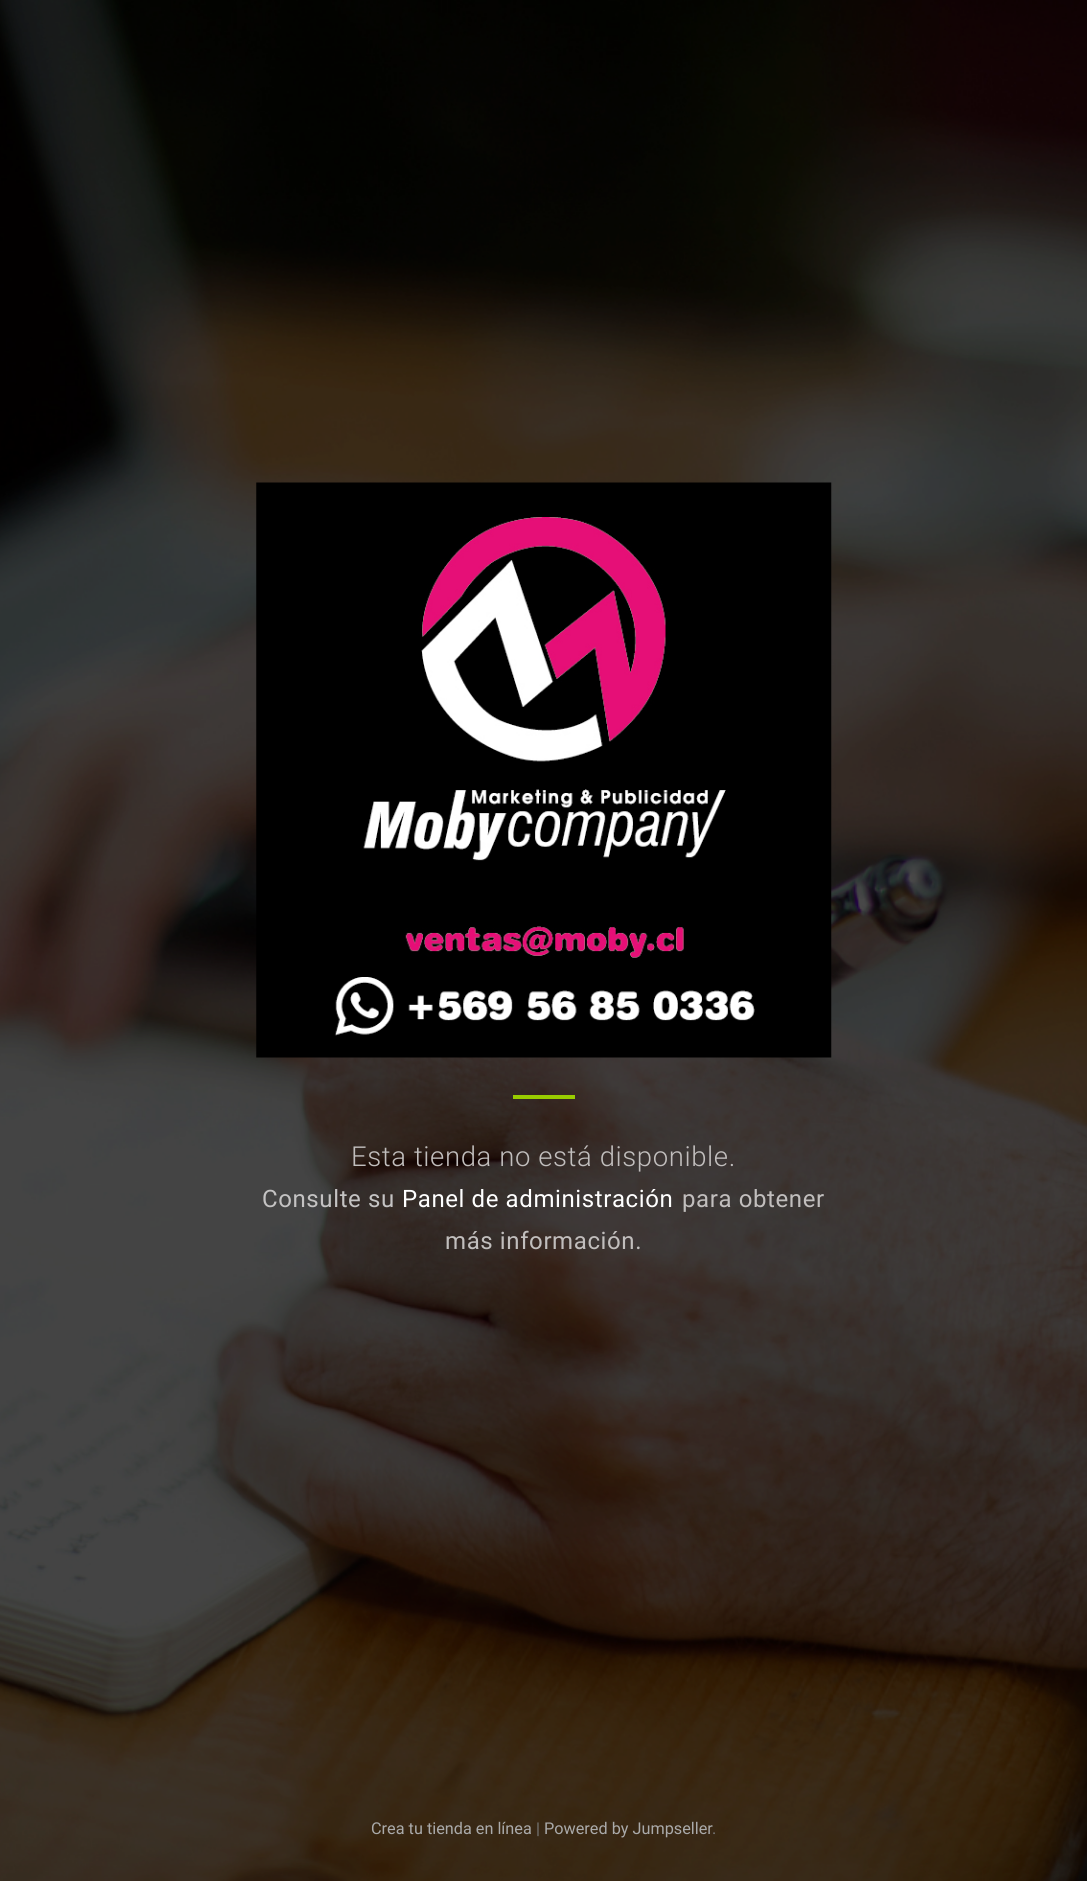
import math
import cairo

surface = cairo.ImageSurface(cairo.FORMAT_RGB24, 1087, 1881)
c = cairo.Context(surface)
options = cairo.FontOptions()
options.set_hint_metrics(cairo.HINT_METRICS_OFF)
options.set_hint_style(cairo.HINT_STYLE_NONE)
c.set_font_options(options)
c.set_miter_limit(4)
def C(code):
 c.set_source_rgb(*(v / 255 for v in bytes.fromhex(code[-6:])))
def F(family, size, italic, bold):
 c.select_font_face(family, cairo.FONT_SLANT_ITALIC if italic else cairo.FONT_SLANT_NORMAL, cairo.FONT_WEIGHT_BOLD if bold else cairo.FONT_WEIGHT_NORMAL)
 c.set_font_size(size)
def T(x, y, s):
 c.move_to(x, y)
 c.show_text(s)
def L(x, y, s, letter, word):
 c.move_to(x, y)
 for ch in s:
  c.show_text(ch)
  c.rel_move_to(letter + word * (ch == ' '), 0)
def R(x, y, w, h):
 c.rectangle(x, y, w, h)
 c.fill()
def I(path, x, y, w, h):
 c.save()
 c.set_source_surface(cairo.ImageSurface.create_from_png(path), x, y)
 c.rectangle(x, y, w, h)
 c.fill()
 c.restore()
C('ffffff')
c.paint()
I('1.png',0,0,1087,1881)
I('2.png',256,482,576,576)
C('99cc00')
R(513,1095,62,4)
F('Roboto Light',27.5,0,0)
C('c1bebd')
L(351,1166,'Esta tienda no está disponible.',.6,0)
F('Roboto',24,0,0)
C('c4c3c3')
L(262,1207,'Consulte su',.6,0)
C('ffffff')
L(402,1207,'Panel de administración',.6,0)
C('c1bebd')
L(682,1207,'para obtener',.6,0)
L(445,1249,'más información.',.6,0)
F('Roboto',16.25,0,0)
C('aaaaaa')
T(371,1834,'Crea tu tienda en línea')
C('777777')
T(536,1834,'|')
C('aaaaaa')
T(544,1834,'Powered by Jumpseller')
C('777777')
T(712,1834,'.')
surface.write_to_png('o.png')
